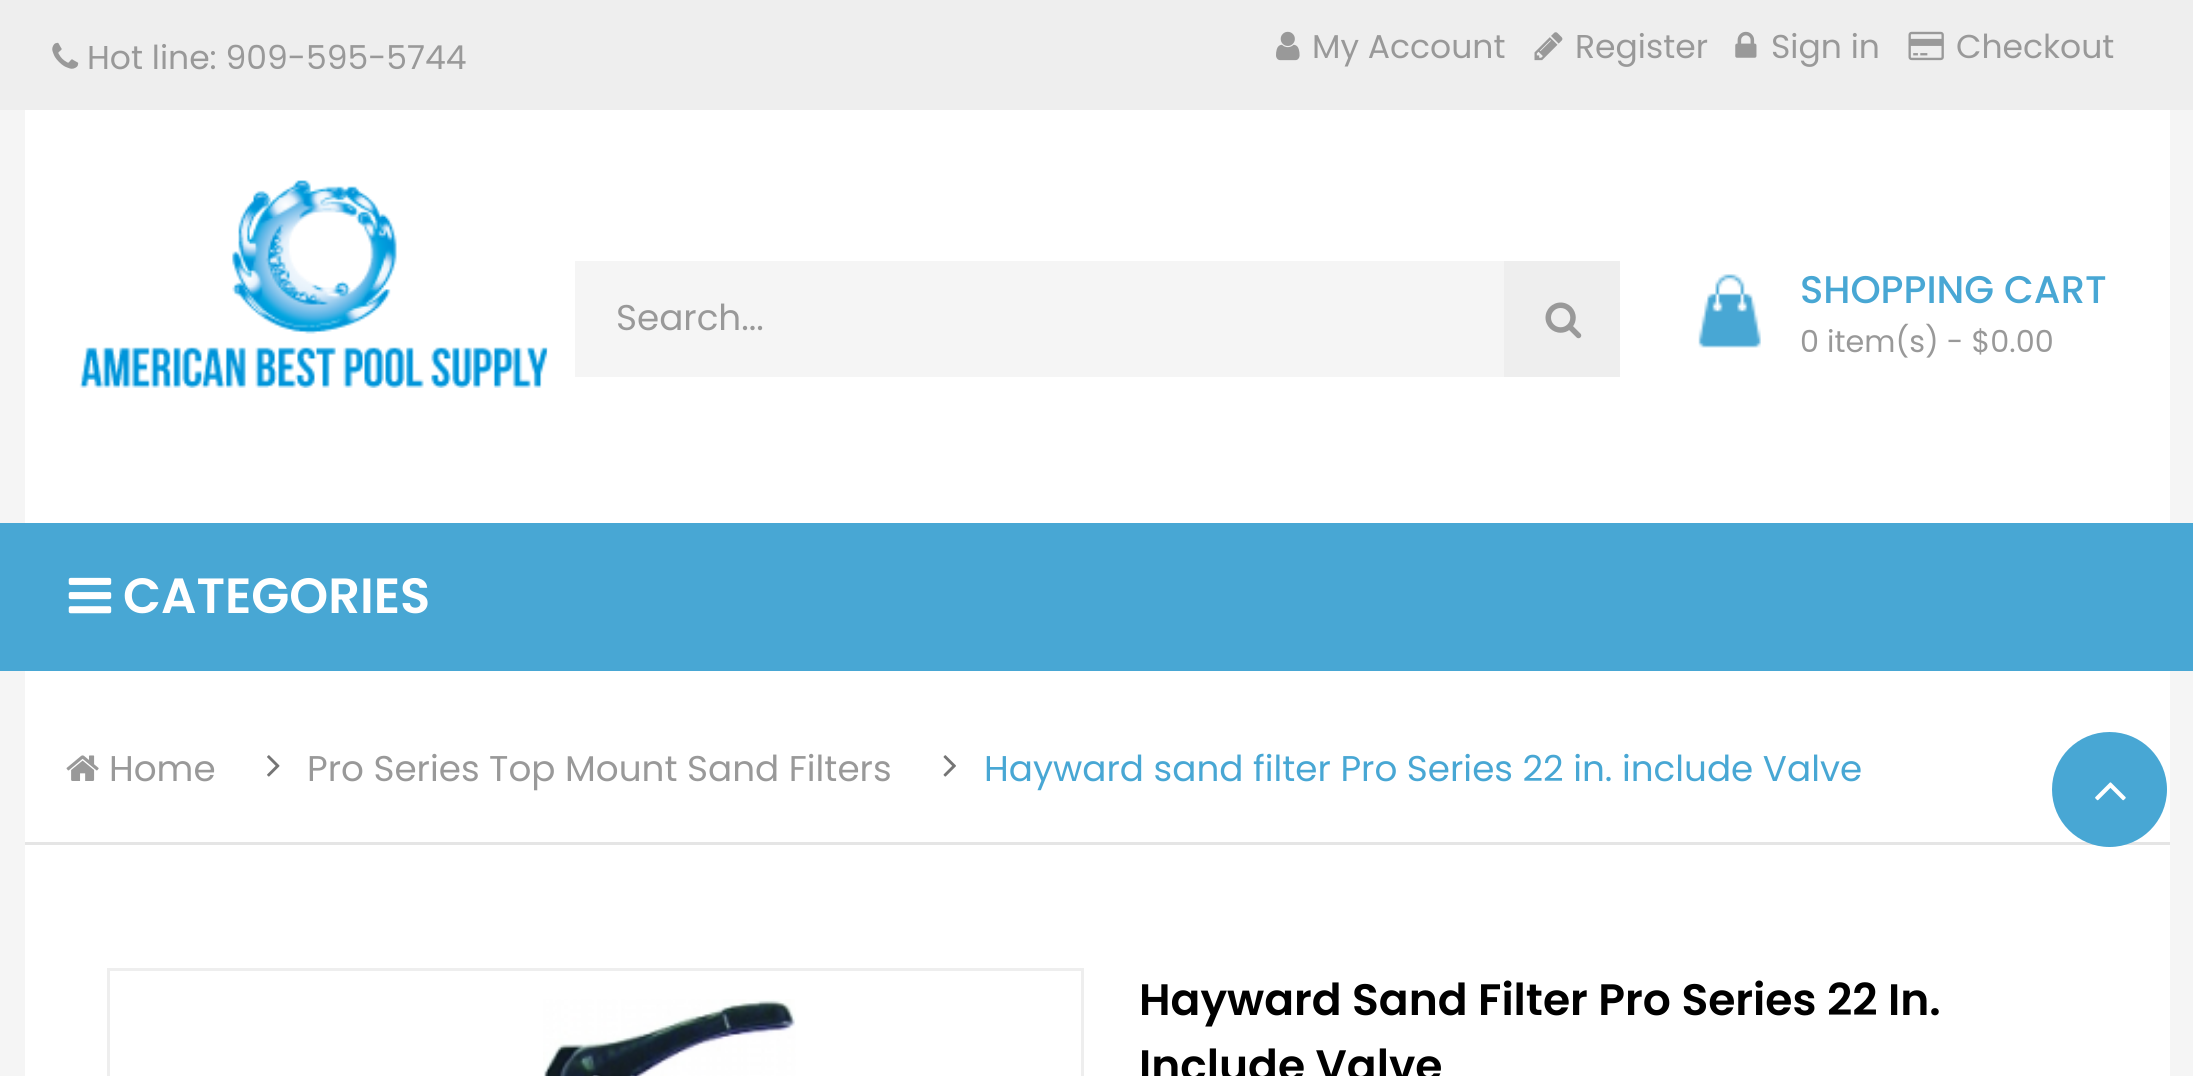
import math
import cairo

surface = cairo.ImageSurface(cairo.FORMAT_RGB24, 2193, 1076)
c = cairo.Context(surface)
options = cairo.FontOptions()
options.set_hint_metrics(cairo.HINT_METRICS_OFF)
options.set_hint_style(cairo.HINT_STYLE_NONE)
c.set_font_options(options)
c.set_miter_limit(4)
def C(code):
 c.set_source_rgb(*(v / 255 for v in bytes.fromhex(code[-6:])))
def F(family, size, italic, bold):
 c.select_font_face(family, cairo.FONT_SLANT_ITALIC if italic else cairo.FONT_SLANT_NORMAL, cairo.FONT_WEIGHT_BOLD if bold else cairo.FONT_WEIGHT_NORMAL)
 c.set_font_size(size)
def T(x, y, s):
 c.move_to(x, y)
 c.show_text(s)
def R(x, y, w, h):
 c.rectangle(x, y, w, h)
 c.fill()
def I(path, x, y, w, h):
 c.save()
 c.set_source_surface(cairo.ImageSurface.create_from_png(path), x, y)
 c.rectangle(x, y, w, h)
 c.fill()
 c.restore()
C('f5f5f5')
c.paint()
C('eeeeee')
R(0,0,2193,110)
I('1.png',52,42,27,27)
F('Poppins',33,0,0)
C('999999')
T(87,69,'Hot line: 909-595-5744')
I('2.png',1276,31,24,30)
T(1312,58,'My Account')
I('3.png',1534,32,29,29)
T(1575,58,'Register')
I('4.png',1735,31,22,27)
T(1771,58,'Sign in')
I('5.png',1908,31,36,30)
T(1956,58,'Checkout')
C('ffffff')
R(25,110,2145,413)
I('6.png',79,180,469,208)
C('f5f5f5')
R(575,261,929,116)
F('Poppins',35.75,0,0)
C('999999')
T(616,330,'Search...')
C('eeeeee')
R(1504,261,116,116)
I('7.png',1545,302,37,37)
I('8.png',1698,274,63,74)
F('Poppins Medium',38.5,0,0)
C('48a7d4')
T(1800,303,'SHOPPING CART')
F('Poppins',30.25,0,0)
C('999999')
T(1800,352,'0 item(s) - $0.00')
C('48a7d4')
R(0,523,2193,148)
I('9.png',68,577,44,37)
F('Poppins SemiBold',49.5,0,0)
C('ffffff')
T(123,613,'CATEGORIES')
R(25,671,2145,405)
C('e5e5e5')
R(25,842,2145,3)
I('10.png',66,755,33,26)
F('Poppins',35.75,0,0)
C('999999')
T(109,781,'Home')
I('11.png',267,755,13,22)
T(307,781,'Pro Series Top Mount Sand Filters')
I('12.png',943,755,13,22)
C('48a7d4')
T(984,781,'Hayward sand filter Pro Series 22 in. include Valve')
c.new_path()
c.arc(2109.5,789.5,57.5,0,2 * math.pi)
c.fill()
I('13.png',2095,782,31,19)
c.rectangle(108.5,969.5,974,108)
C('eeeeee')
c.set_line_width(3)
c.stroke()
I('14.png',543,999,253,77)
F('Poppins SemiBold',44,0,0)
C('000000')
T(1139,1015,'Hayward Sand Filter Pro Series 22 In.')
T(1139,1081,'Include Valve')
surface.write_to_png('o.png')
